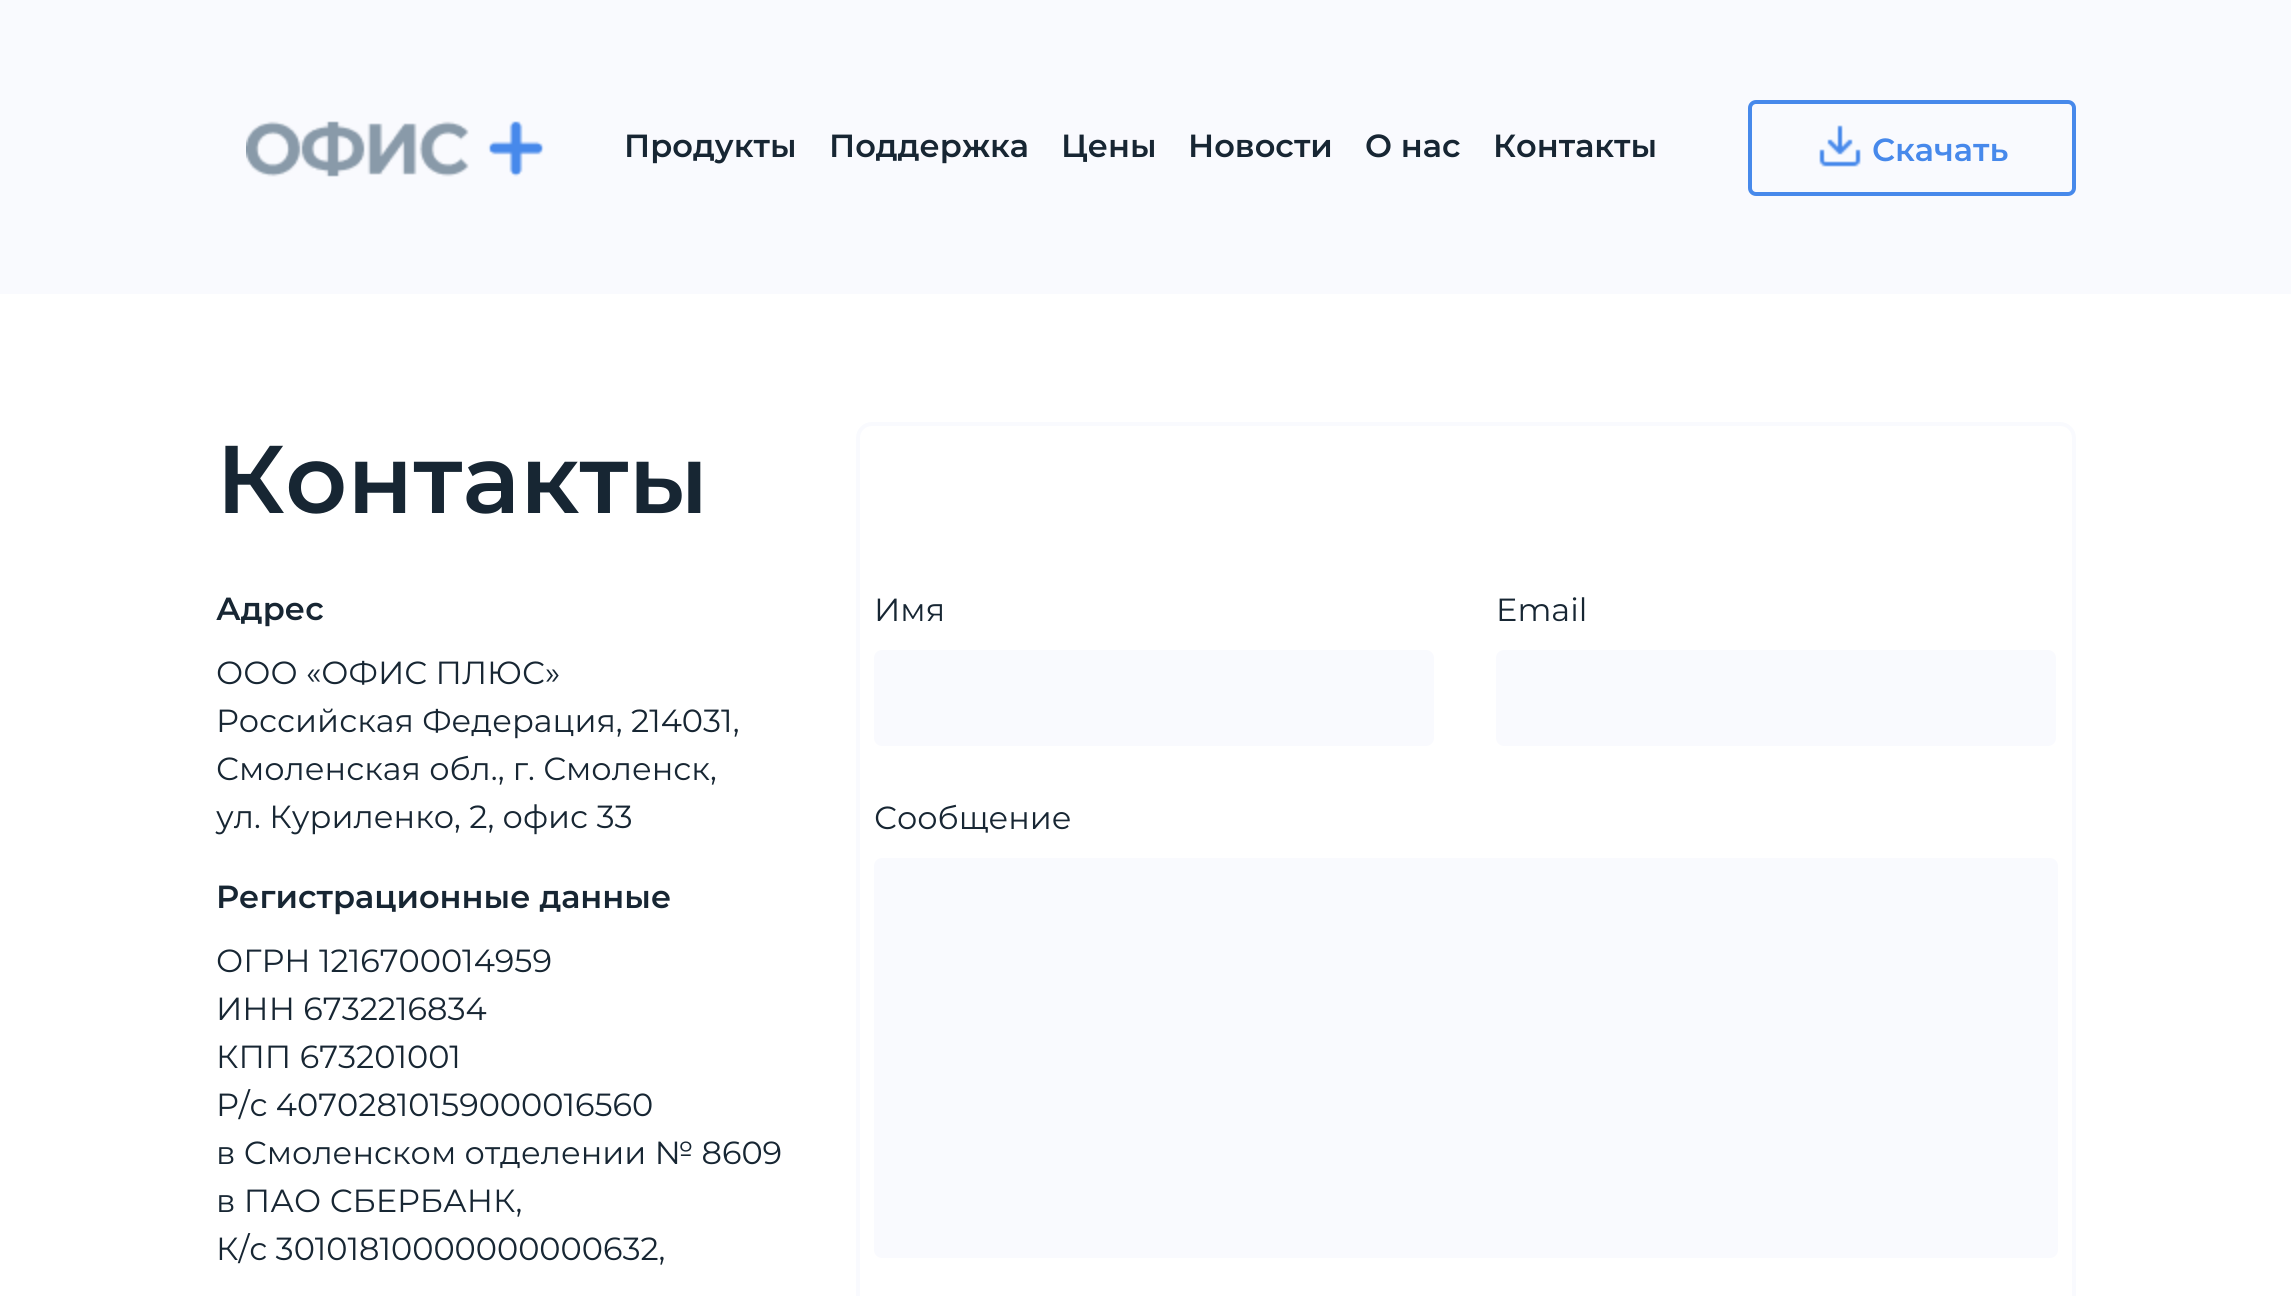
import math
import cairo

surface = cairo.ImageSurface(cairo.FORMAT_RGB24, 2291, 1296)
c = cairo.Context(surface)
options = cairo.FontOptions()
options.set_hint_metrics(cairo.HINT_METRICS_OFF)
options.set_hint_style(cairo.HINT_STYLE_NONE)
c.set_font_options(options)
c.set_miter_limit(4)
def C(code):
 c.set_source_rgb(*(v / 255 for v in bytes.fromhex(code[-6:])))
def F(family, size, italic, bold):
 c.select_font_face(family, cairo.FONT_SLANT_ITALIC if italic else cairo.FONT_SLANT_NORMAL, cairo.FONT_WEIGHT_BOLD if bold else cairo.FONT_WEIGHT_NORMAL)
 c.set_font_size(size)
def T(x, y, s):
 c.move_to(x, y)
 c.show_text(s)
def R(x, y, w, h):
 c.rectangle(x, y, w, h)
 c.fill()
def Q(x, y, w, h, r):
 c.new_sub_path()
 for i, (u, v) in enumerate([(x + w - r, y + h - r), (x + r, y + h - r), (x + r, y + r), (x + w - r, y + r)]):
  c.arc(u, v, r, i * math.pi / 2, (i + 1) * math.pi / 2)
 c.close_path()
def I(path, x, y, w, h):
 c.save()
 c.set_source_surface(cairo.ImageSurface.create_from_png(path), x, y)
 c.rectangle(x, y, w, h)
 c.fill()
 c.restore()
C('ffffff')
c.paint()
C('f9fafe')
R(0,0,2291,294)
I('1.png',246,121,298,56)
F('Montserrat SemiBold',32,0,0)
C('172633')
T(624,157,'Продукты')
T(829,157,'Поддержка')
T(1061,157,'Цены')
T(1188,157,'Новости')
T(1365,157,'О нас')
T(1493,157,'Контакты')
Q(1750,102,324,92,6)
C('4789eb')
c.set_line_width(4)
c.stroke()
I('2.png',1819,125,42,42)
T(1872,161,'Скачать')
F('Montserrat SemiBold',96,0,0)
C('172633')
T(216,513,'Контакты')
F('Montserrat SemiBold',32,0,0)
T(216,620,'Адрес')
F('Montserrat',32,0,0)
T(216,684,'ООО «ОФИС ПЛЮС»')
T(216,732,'Российская Федерация, 214031,')
T(216,780,'Смоленская обл., г. Смоленск,')
T(216,828,'ул. Куриленко, 2, офис 33')
F('Montserrat SemiBold',32,0,0)
T(216,908,'Регистрационные данные')
F('Montserrat',32,0,0)
T(216,972,'ОГРН 1216700014959')
T(216,1020,'ИНН 6732216834')
T(216,1068,'КПП 673201001')
T(216,1116,'Р/с 40702810159000016560')
T(216,1164,'в Смоленском отделении № 8609')
T(216,1212,'в ПАО СБЕРБАНК,')
T(216,1260,'К/с 30101810000000000632,')
Q(858,424,1216,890,14)
C('f9fafe')
c.stroke()
C('172633')
T(874,621,'Имя')
C('f9fafe')
Q(874,650,560,96,8)
c.fill()
C('172633')
T(1496,621,'Email')
C('f9fafe')
Q(1496,650,560,96,8)
c.fill()
C('172633')
T(874,829,'Сообщение')
C('f9fafe')
Q(874,858,1184,400,8)
c.fill()
surface.write_to_png('o.png')
